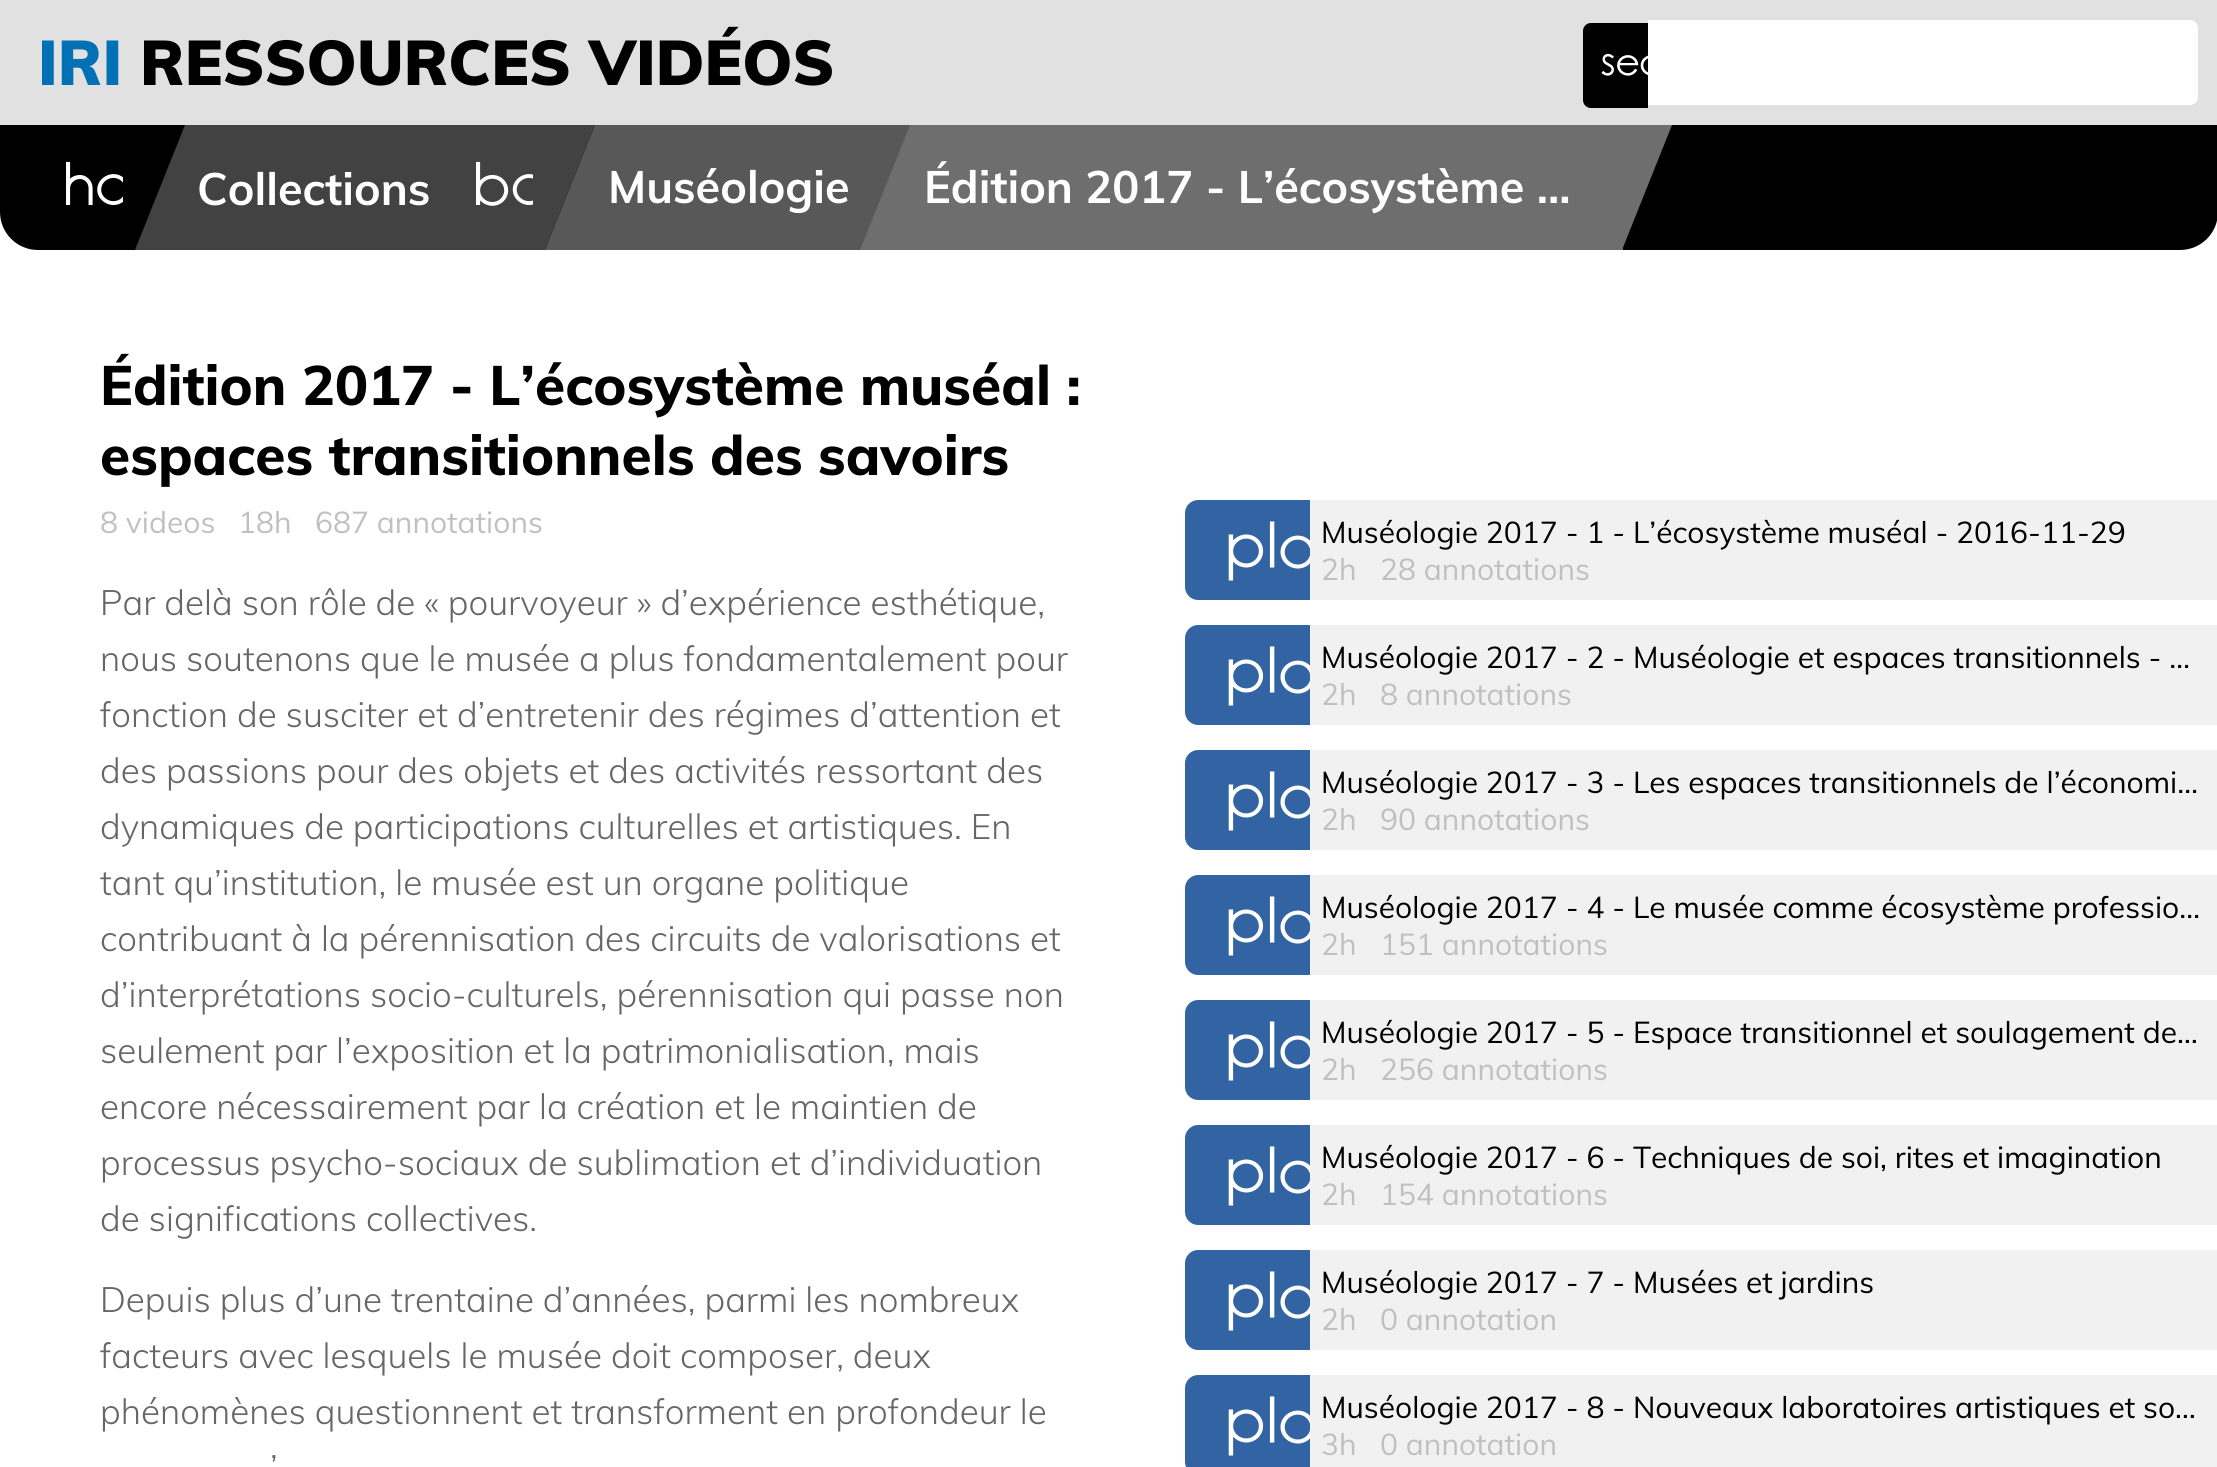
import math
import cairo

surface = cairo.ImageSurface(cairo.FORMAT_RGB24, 2217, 1467)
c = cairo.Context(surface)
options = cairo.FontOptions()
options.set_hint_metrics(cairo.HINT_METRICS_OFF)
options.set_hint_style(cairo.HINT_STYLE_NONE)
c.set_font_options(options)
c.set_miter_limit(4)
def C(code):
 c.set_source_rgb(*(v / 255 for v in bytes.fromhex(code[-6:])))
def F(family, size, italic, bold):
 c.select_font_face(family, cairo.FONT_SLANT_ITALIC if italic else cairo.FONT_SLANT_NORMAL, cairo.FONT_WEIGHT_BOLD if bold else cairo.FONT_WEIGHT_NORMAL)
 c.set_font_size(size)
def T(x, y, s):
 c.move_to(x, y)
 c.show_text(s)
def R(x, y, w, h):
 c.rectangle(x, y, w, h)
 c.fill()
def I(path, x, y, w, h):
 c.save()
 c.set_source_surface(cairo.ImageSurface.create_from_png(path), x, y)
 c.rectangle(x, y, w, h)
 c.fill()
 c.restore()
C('ffffff')
c.paint()
C('e1e1e1')
R(0,0,2217,125)
F('Muli Black',62.5,0,0)
C('0270b5')
T(38,85,'IRI')
C('000000')
T(140,85,'RESSOURCES VIDÉOS')
c.new_path()
c.move_to(1591,23)
c.line_to(1648,23)
c.line_to(1648,108)
c.line_to(1591,108)
c.curve_to(1586.5,108,1583,104.5,1583,100)
c.line_to(1583,31)
c.curve_to(1583,26.5,1586.5,23,1591,23)
c.close_path()
c.fill()
I('1.png',1601,53,47,23)
C('ffffff')
c.new_path()
c.move_to(1648,20)
c.line_to(2190,20)
c.curve_to(2194.5,20,2198,23.5,2198,28)
c.line_to(2198,97)
c.curve_to(2198,101.5,2194.5,105,2190,105)
c.line_to(1648,105)
c.close_path()
c.fill()
C('000000')
c.new_path()
c.move_to(0,125)
c.line_to(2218,125)
c.line_to(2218,212)
c.curve_to(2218,233,2201,250,2180,250)
c.line_to(38,250)
c.curve_to(17,250,0,233,0,212)
c.close_path()
c.fill()
I('2.png',66,161,57,44)
C('424242')
R(185,125,360,125)
c.new_path()
c.move_to(185,250)
c.line_to(135,250)
c.line_to(185,125)
c.close_path()
c.fill()
F('Muli',45,0,1)
C('ffffff')
T(197,205,'Collections')
I('3.png',476,161,57,45)
C('424242')
c.new_path()
c.move_to(545,125)
c.line_to(595,125)
c.line_to(545,250)
c.close_path()
c.fill()
C('585858')
R(595,125,267,125)
c.new_path()
c.move_to(595,250)
c.line_to(545,250)
c.line_to(595,125)
c.close_path()
c.fill()
C('ffffff')
T(608,203,'Muséologie')
C('585858')
c.new_path()
c.move_to(862,125)
c.line_to(912,125)
c.line_to(862,250)
c.close_path()
c.fill()
C('6e6e6e')
R(910,125,713,125)
c.new_path()
c.move_to(910,250)
c.line_to(860,250)
c.line_to(910,125)
c.close_path()
c.fill()
C('ffffff')
T(924,203,'Édition 2017 - L’écosystème …')
C('6e6e6e')
c.new_path()
c.move_to(1622,125)
c.line_to(1672,125)
c.line_to(1622,250)
c.close_path()
c.fill()
F('Muli ExtraBold',55,0,0)
C('000000')
T(100,405,'Édition 2017 - L’écosystème muséal :')
T(100,475,'espaces transitionnels des savoirs')
F('Muli',30,0,0)
C('c0c0c0')
T(100,533,'8 videos')
T(238,533,'18h')
T(315,533,'687 annotations')
F('Muli Light',35,0,0)
C('666666')
T(100,615,'Par delà son rôle de « pourvoyeur » d’expérience esthétique,')
T(100,671,'nous soutenons que le musée a plus fondamentalement pour')
T(100,727,'fonction de susciter et d’entretenir des régimes d’attention et')
T(100,783,'des passions pour des objets et des activités ressortant des')
T(100,839,'dynamiques de participations culturelles et artistiques. En')
T(100,895,'tant qu’institution, le musée est un organe politique')
T(100,951,'contribuant à la pérennisation des circuits de valorisations et')
T(100,1007,'d’interprétations socio-culturels, pérennisation qui passe non')
T(100,1063,'seulement par l’exposition et la patrimonialisation, mais')
T(100,1119,'encore nécessairement par la création et le maintien de')
T(100,1175,'processus psycho-sociaux de sublimation et d’individuation')
T(100,1231,'de significations collectives.')
T(100,1312,'Depuis plus d’une trentaine d’années, parmi les nombreux')
T(100,1368,'facteurs avec lesquels le musée doit composer, deux')
T(100,1424,'phénomènes questionnent et transforment en profondeur le')
T(270,1480,'’')
C('3263a2')
c.new_path()
c.move_to(1198,500)
c.line_to(1310,500)
c.line_to(1310,600)
c.line_to(1198,600)
c.curve_to(1191,600,1185,594,1185,587)
c.line_to(1185,513)
c.curve_to(1185,506,1191,500,1198,500)
c.close_path()
c.fill()
I('4.png',1228,521,82,60)
C('f1f1f1')
R(1310,500,907,100)
F('Muli',30,0,0)
C('000000')
T(1321,543,'Muséologie 2017 - 1 - L’écosystème muséal - 2016-11-29')
C('c0c0c0')
T(1321,580,'2h')
T(1380,580,'28 annotations')
C('3263a2')
c.new_path()
c.move_to(1198,625)
c.line_to(1310,625)
c.line_to(1310,725)
c.line_to(1198,725)
c.curve_to(1191,725,1185,719,1185,712)
c.line_to(1185,638)
c.curve_to(1185,631,1191,625,1198,625)
c.close_path()
c.fill()
I('4.png',1228,646,82,60)
C('f1f1f1')
R(1310,625,907,100)
C('000000')
T(1321,668,'Muséologie 2017 - 2 - Muséologie et espaces transitionnels - …')
C('c0c0c0')
T(1321,705,'2h')
T(1380,705,'8 annotations')
C('3263a2')
c.new_path()
c.move_to(1198,750)
c.line_to(1310,750)
c.line_to(1310,850)
c.line_to(1198,850)
c.curve_to(1191,850,1185,844,1185,837)
c.line_to(1185,763)
c.curve_to(1185,756,1191,750,1198,750)
c.close_path()
c.fill()
I('4.png',1228,771,82,60)
C('f1f1f1')
R(1310,750,907,100)
C('000000')
T(1321,793,'Muséologie 2017 - 3 - Les espaces transitionnels de l’économi…')
C('c0c0c0')
T(1321,830,'2h')
T(1380,830,'90 annotations')
C('3263a2')
c.new_path()
c.move_to(1198,875)
c.line_to(1310,875)
c.line_to(1310,975)
c.line_to(1198,975)
c.curve_to(1191,975,1185,969,1185,962)
c.line_to(1185,888)
c.curve_to(1185,881,1191,875,1198,875)
c.close_path()
c.fill()
I('4.png',1228,896,82,60)
C('f1f1f1')
R(1310,875,907,100)
C('000000')
T(1321,918,'Muséologie 2017 - 4 - Le musée comme écosystème professio…')
C('c0c0c0')
T(1321,955,'2h')
T(1380,955,'151 annotations')
C('3263a2')
c.new_path()
c.move_to(1198,1000)
c.line_to(1310,1000)
c.line_to(1310,1100)
c.line_to(1198,1100)
c.curve_to(1191,1100,1185,1094,1185,1087)
c.line_to(1185,1013)
c.curve_to(1185,1006,1191,1000,1198,1000)
c.close_path()
c.fill()
I('4.png',1228,1021,82,60)
C('f1f1f1')
R(1310,1000,907,100)
C('000000')
T(1321,1043,'Muséologie 2017 - 5 - Espace transitionnel et soulagement de…')
C('c0c0c0')
T(1321,1080,'2h')
T(1380,1080,'256 annotations')
C('3263a2')
c.new_path()
c.move_to(1198,1125)
c.line_to(1310,1125)
c.line_to(1310,1225)
c.line_to(1198,1225)
c.curve_to(1191,1225,1185,1219,1185,1212)
c.line_to(1185,1138)
c.curve_to(1185,1131,1191,1125,1198,1125)
c.close_path()
c.fill()
I('4.png',1228,1146,82,60)
C('f1f1f1')
R(1310,1125,907,100)
C('000000')
T(1321,1168,'Muséologie 2017 - 6 - Techniques de soi, rites et imagination')
C('c0c0c0')
T(1321,1205,'2h')
T(1380,1205,'154 annotations')
C('3263a2')
c.new_path()
c.move_to(1198,1250)
c.line_to(1310,1250)
c.line_to(1310,1350)
c.line_to(1198,1350)
c.curve_to(1191,1350,1185,1344,1185,1337)
c.line_to(1185,1263)
c.curve_to(1185,1256,1191,1250,1198,1250)
c.close_path()
c.fill()
I('4.png',1228,1271,82,60)
C('f1f1f1')
R(1310,1250,907,100)
C('000000')
T(1321,1293,'Muséologie 2017 - 7 - Musées et jardins')
C('c0c0c0')
T(1321,1330,'2h')
T(1380,1330,'0 annotation')
C('3263a2')
c.new_path()
c.move_to(1198,1375)
c.line_to(1310,1375)
c.line_to(1310,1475)
c.line_to(1198,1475)
c.curve_to(1191,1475,1185,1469,1185,1462)
c.line_to(1185,1388)
c.curve_to(1185,1381,1191,1375,1198,1375)
c.close_path()
c.fill()
I('4.png',1228,1396,82,60)
C('f1f1f1')
R(1310,1375,907,92)
C('000000')
T(1321,1418,'Muséologie 2017 - 8 - Nouveaux laboratoires artistiques et so…')
C('c0c0c0')
T(1321,1455,'3h')
T(1380,1455,'0 annotation')
surface.write_to_png('o.png')
